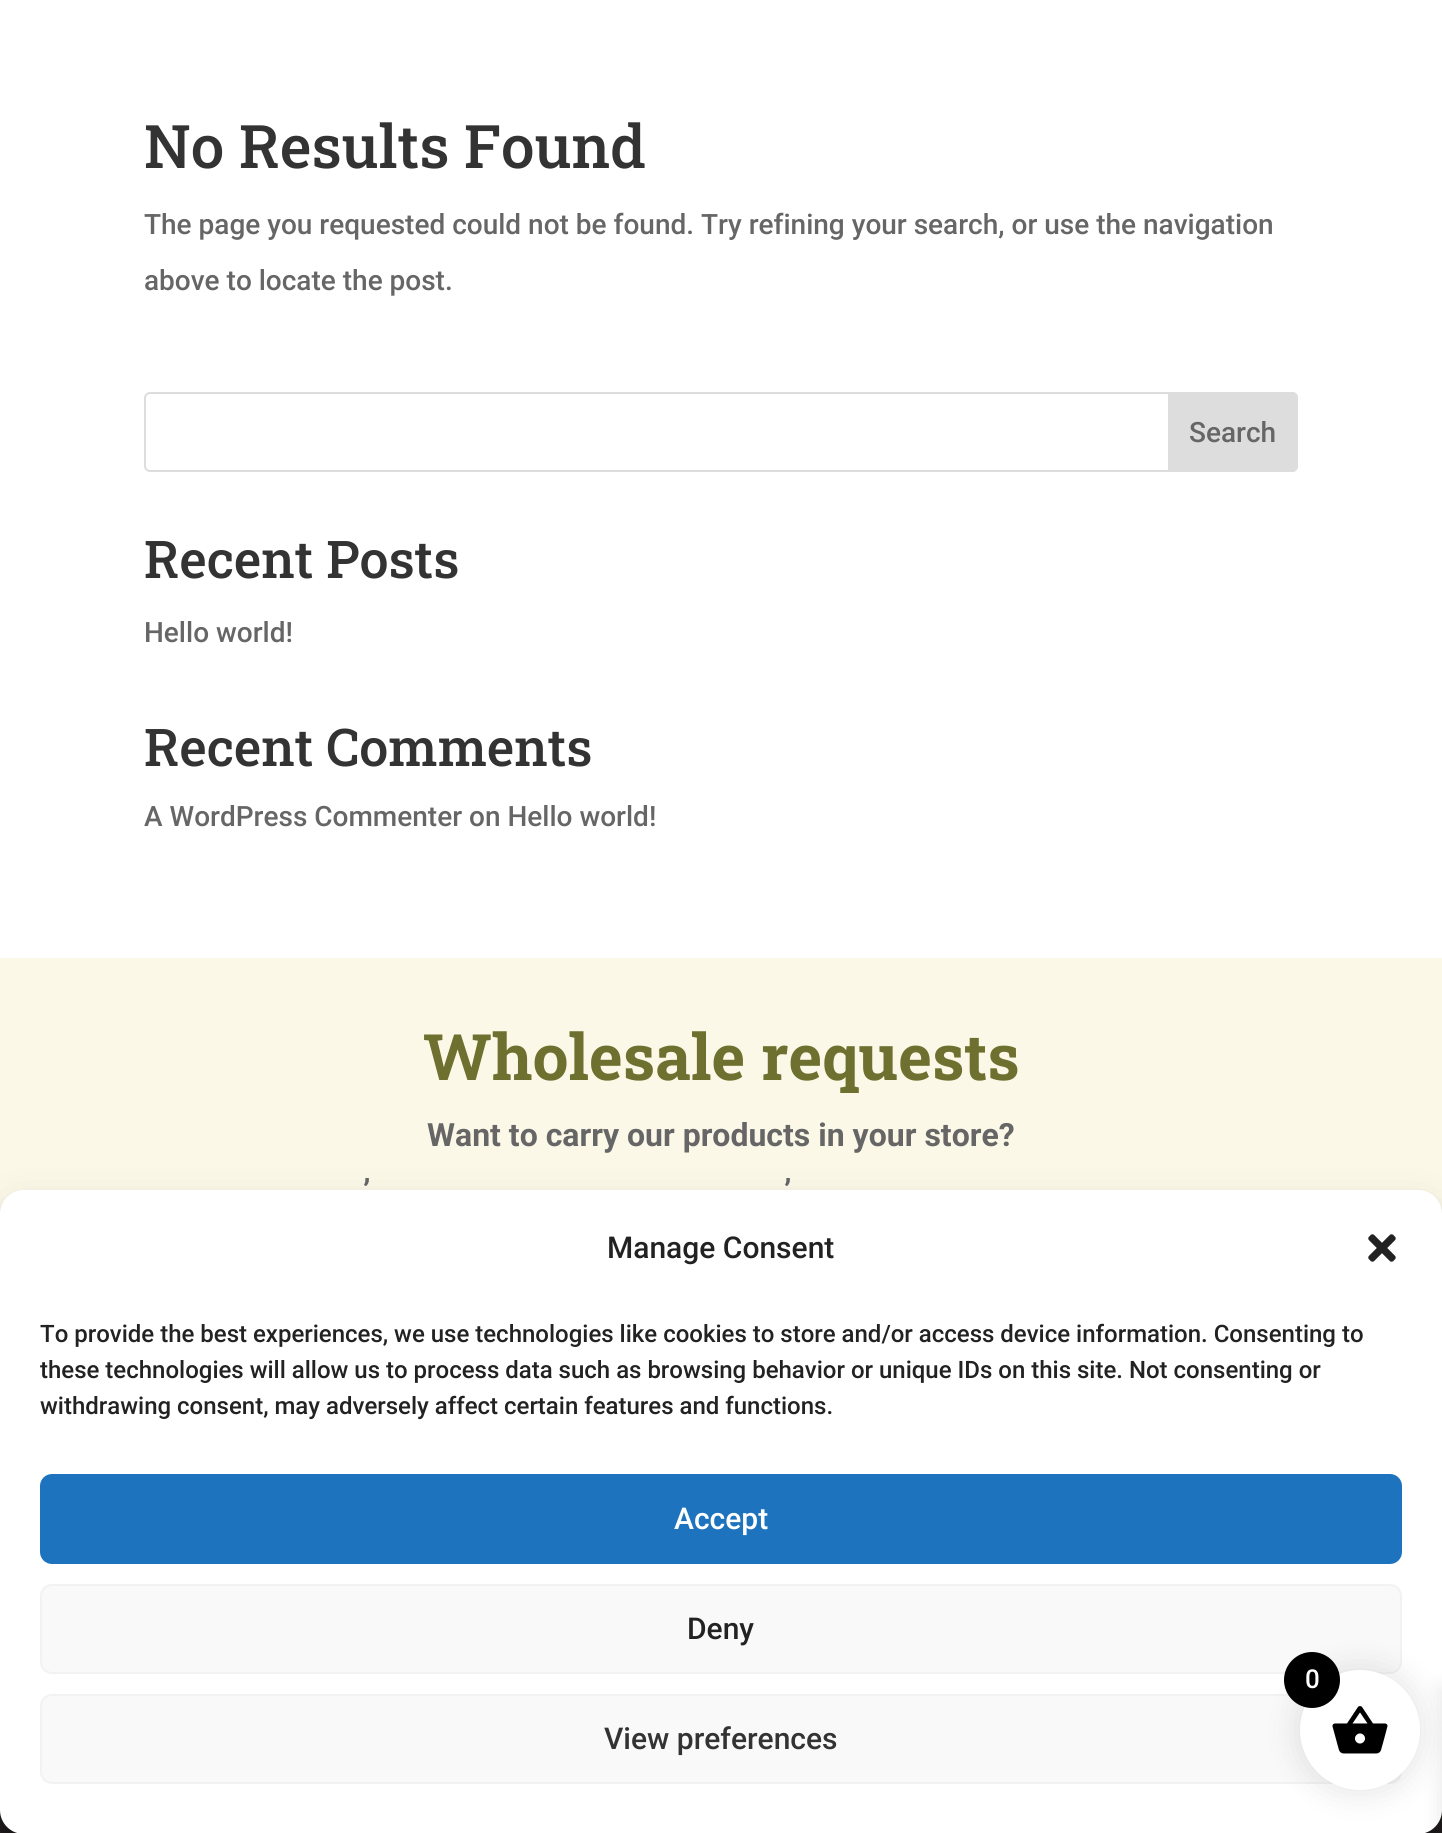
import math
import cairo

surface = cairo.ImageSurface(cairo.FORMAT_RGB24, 1442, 1833)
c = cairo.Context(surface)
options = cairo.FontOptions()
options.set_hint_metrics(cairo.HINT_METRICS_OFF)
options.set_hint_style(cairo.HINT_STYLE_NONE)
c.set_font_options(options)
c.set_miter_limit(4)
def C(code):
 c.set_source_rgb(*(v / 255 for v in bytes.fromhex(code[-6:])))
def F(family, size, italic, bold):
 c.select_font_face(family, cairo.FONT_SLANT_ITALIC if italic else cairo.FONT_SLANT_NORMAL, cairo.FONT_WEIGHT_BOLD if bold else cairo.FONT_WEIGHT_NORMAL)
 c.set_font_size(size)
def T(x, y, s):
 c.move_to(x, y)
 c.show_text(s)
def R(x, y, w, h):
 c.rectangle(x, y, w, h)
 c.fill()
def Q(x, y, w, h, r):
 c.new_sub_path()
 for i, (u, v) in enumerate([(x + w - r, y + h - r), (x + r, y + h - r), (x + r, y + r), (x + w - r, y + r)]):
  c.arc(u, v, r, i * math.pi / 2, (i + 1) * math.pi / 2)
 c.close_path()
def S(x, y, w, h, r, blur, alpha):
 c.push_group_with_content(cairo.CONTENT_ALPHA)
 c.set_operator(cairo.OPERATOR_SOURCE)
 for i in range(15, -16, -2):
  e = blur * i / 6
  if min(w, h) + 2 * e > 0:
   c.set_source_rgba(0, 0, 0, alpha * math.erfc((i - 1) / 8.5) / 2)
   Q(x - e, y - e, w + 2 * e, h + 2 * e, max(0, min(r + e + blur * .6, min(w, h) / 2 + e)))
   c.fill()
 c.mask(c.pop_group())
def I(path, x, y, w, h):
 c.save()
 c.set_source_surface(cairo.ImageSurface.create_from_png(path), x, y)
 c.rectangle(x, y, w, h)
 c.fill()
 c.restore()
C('ffffff')
c.paint()
F('Roboto Slab Medium',60,0,0)
C('333333')
T(144,168,'No Results Found')
F('Roboto Medium',28,0,0)
C('666666')
T(144,234,'The page you requested could not be found. Try refining your search, or use the navigation')
T(144,290,'above to locate the post.')
Q(145,393,1152,78,5)
C('dddddd')
c.stroke()
c.new_path()
c.move_to(1169,393)
c.line_to(1292,393)
c.curve_to(1295,393,1297,395,1297,398)
c.line_to(1297,466)
c.curve_to(1297,469,1295,471,1292,471)
c.line_to(1169,471)
c.close_path()
c.fill_preserve()
c.stroke()
C('666666')
T(1189,442,'Search')
F('Roboto Slab Medium',52,0,0)
C('333333')
T(144,578,'Recent Posts')
F('Roboto Medium',28,0,0)
C('666666')
T(144,642,'Hello world!')
F('Roboto Slab Medium',52,0,0)
C('333333')
T(144,766,'Recent Comments')
F('Roboto Medium',28,0,0)
C('666666')
T(144,826,'A WordPress Commenter on Hello world!')
C('fbf8e8')
R(0,958,1442,256)
F('Roboto Slab',64,0,1)
C('6e702f')
T(423,1080,'Wholesale requests')
F('Roboto',32,0,1)
C('666666')
T(427,1146,'Want to carry our products in your store?')
T(363,1202,'’')
T(784,1202,'’')
C('231f20')
R(0,1810,1442,23)
C('000000')
S(0,1202,1442,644,24,6,.23)
S(0,1210,1442,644,24,20,.19)
C('ffffff')
Q(0,1190,1442,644,24)
c.fill()
F('Roboto Medium',30,0,0)
C('222222')
T(607,1258,'Manage Consent')
I('1.png',1368,1234,28,28)
F('Roboto Medium',24,0,0)
T(40,1342,'To provide the best experiences, we use technologies like cookies to store and/or access device information. Consenting to')
T(40,1378,'these technologies will allow us to process data such as browsing behavior or unique IDs on this site. Not consenting or')
T(40,1414,'withdrawing consent, may adversely affect certain features and functions.')
C('1e73be')
Q(41,1475,1360,88,11)
c.fill_preserve()
c.stroke()
F('Roboto Medium',30,0,0)
C('ffffff')
T(674,1529,'Accept')
C('f9f9f9')
Q(41,1585,1360,88,11)
c.fill_preserve()
C('f2f2f2')
c.stroke()
C('222222')
T(687,1639,'Deny')
C('f9f9f9')
Q(41,1695,1360,88,11)
c.fill_preserve()
C('f2f2f2')
c.stroke()
C('333333')
T(604,1749,'View preferences')
C('000000')
S(1296,1666,128,128,64,15,.1)
S(1442,1688,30,144,0,10,.1)
C('ffffff')
c.arc(1360,1730,60,0,2 * math.pi)
c.fill()
I('2.png',1332,1706,56,48)
C('000000')
c.arc(1312,1680,28,0,2 * math.pi)
c.fill()
F('Roboto Medium',26,0,0)
C('ffffff')
T(1305,1688,'0')
surface.write_to_png('o.png')
